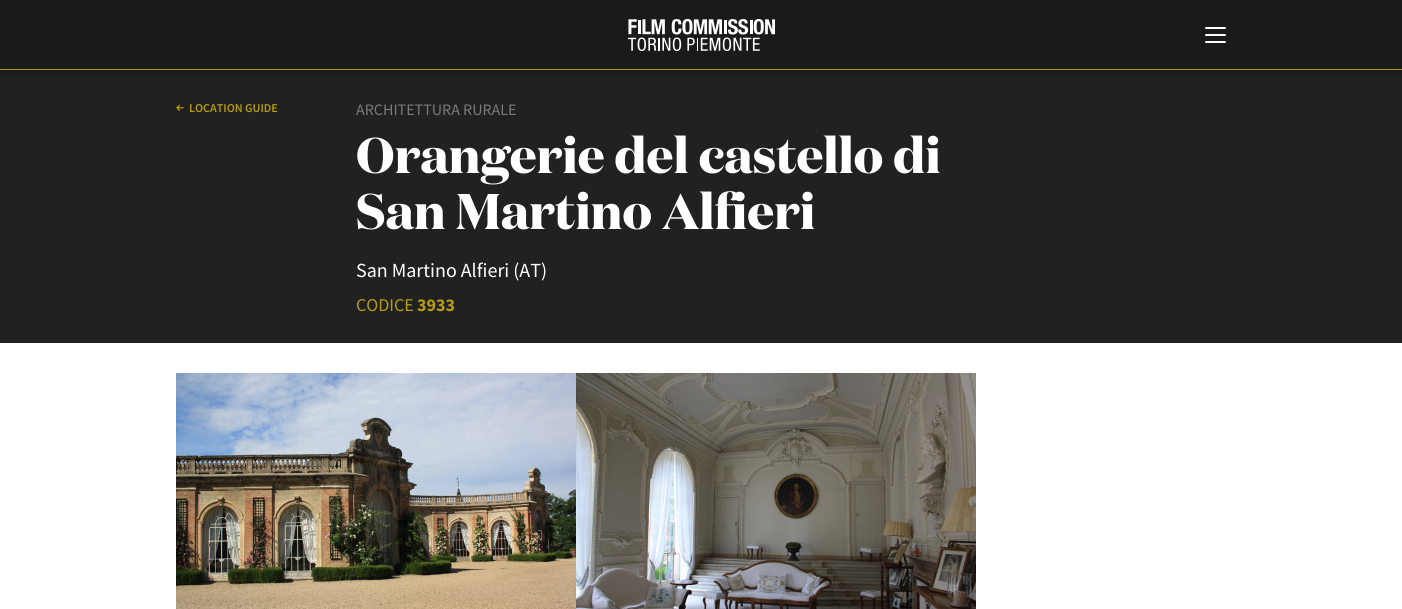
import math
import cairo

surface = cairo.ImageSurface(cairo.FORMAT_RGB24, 1402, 609)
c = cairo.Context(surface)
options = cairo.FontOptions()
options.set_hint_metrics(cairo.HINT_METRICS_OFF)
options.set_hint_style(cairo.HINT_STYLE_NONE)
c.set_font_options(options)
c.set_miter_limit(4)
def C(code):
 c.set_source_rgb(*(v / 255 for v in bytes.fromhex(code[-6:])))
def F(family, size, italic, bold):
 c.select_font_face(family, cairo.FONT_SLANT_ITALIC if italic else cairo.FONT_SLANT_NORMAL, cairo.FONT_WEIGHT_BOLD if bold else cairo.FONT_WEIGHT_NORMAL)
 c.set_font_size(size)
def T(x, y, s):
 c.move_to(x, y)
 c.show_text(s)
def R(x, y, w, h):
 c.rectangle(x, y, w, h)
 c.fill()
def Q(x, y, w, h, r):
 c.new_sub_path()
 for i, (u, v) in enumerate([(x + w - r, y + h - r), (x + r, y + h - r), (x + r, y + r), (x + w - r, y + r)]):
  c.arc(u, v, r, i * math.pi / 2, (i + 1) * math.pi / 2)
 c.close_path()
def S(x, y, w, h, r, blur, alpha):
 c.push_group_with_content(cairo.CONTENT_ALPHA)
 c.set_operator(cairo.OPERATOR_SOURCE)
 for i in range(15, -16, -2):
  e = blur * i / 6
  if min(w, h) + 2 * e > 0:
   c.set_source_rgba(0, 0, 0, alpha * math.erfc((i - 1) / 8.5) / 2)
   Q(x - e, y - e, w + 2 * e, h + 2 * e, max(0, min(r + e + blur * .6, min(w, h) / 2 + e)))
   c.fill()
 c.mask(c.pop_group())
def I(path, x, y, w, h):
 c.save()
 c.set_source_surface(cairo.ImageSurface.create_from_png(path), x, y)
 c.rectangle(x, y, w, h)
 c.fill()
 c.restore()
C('ffffff')
c.paint()
C('212121')
R(0,70,1402,273)
C('000000')
S(-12,-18,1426,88,0,6,.4)
C('1a1a1a')
R(0,0,1402,69)
I('1.png',628,19,147,32)
C('ffffff')
c.new_path()
c.move_to(1206,27)
c.line_to(1216,27)
c.line_to(1216,29)
c.line_to(1206,29)
c.curve_to(1205.5,29,1205,28.5,1205,28)
c.curve_to(1205,27.5,1205.5,27,1206,27)
c.close_path()
c.fill()
c.new_path()
c.move_to(1215,27)
c.line_to(1225,27)
c.curve_to(1225.5,27,1226,27.5,1226,28)
c.curve_to(1226,28.5,1225.5,29,1225,29)
c.line_to(1215,29)
c.close_path()
c.fill()
c.new_path()
c.move_to(1206,34)
c.line_to(1216,34)
c.line_to(1216,36)
c.line_to(1206,36)
c.curve_to(1205.5,36,1205,35.5,1205,35)
c.curve_to(1205,34.5,1205.5,34,1206,34)
c.close_path()
c.fill()
c.new_path()
c.move_to(1215,34)
c.line_to(1225,34)
c.curve_to(1225.5,34,1226,34.5,1226,35)
c.curve_to(1226,35.5,1225.5,36,1225,36)
c.line_to(1215,36)
c.close_path()
c.fill()
c.new_path()
c.move_to(1206,41)
c.line_to(1216,41)
c.line_to(1216,43)
c.line_to(1206,43)
c.curve_to(1205.5,43,1205,42.5,1205,42)
c.curve_to(1205,41.5,1205.5,41,1206,41)
c.close_path()
c.fill()
c.new_path()
c.move_to(1215,41)
c.line_to(1225,41)
c.curve_to(1225.5,41,1226,41.5,1226,42)
c.curve_to(1226,42.5,1225.5,43,1225,43)
c.line_to(1215,43)
c.close_path()
c.fill()
C('b49b10')
R(0,69,1402,1)
I('2.png',176,104,8,7)
F('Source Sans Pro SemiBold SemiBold',12,0,0)
T(189,112,'LOCATION GUIDE')
F('Source Sans Pro',16,0,0)
C('7a7a7a')
T(356,115,'ARCHITETTURA RURALE')
F('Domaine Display',50,0,1)
C('ffffff')
T(356,173,'Orangerie del castello di')
T(356,229,'San Martino Alfieri')
F('Source Sans Pro',20,0,0)
T(356,277,'San Martino Alfieri (AT)')
F('Source Sans Pro',18,0,0)
C('b49b10')
T(356,311,'CODICE')
F('Source Sans Pro',18,0,1)
T(417,311,'3933')
I('3.png',176,373,400,236)
I('4.png',576,373,400,236)
surface.write_to_png('o.png')
